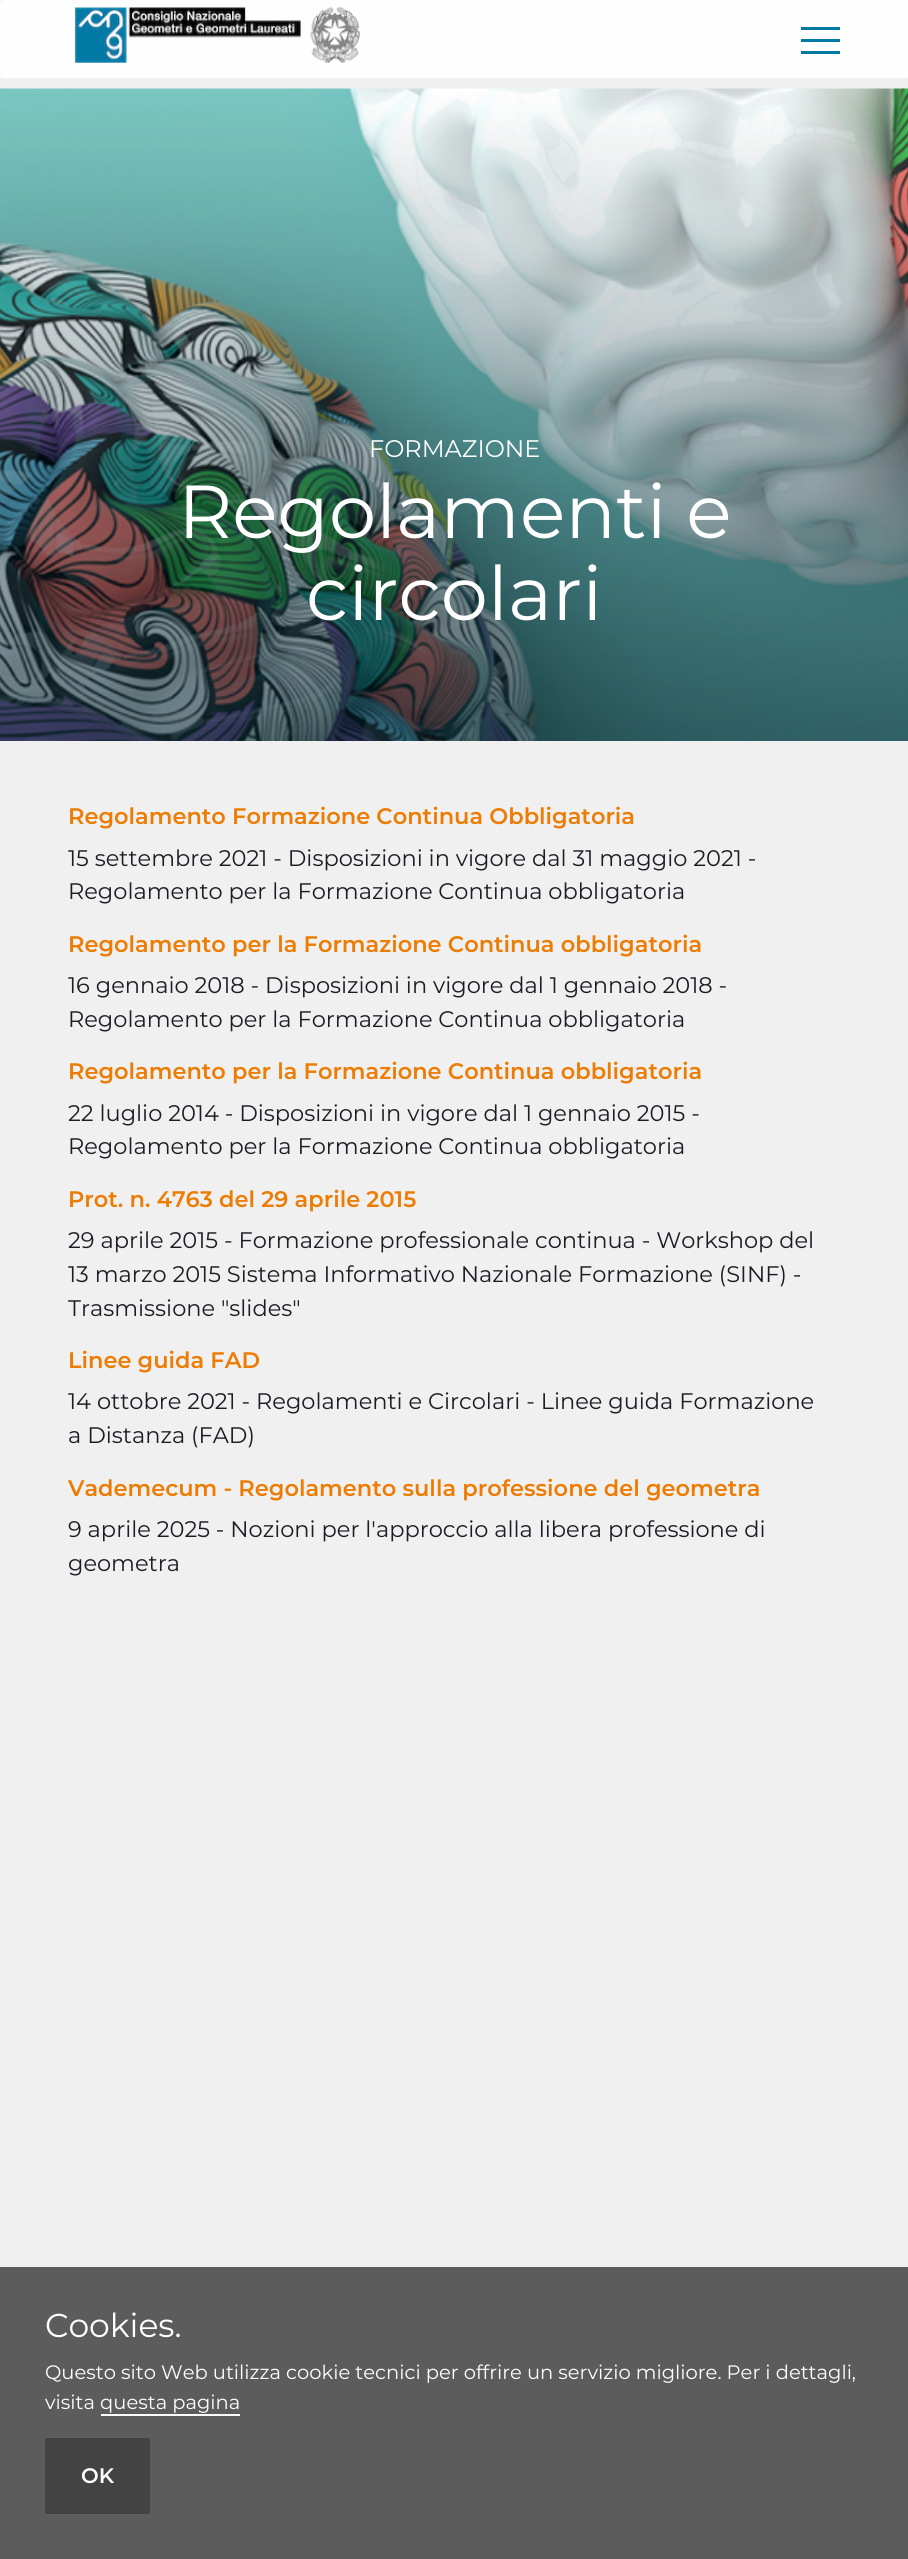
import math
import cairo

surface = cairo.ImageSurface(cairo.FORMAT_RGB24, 908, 2559)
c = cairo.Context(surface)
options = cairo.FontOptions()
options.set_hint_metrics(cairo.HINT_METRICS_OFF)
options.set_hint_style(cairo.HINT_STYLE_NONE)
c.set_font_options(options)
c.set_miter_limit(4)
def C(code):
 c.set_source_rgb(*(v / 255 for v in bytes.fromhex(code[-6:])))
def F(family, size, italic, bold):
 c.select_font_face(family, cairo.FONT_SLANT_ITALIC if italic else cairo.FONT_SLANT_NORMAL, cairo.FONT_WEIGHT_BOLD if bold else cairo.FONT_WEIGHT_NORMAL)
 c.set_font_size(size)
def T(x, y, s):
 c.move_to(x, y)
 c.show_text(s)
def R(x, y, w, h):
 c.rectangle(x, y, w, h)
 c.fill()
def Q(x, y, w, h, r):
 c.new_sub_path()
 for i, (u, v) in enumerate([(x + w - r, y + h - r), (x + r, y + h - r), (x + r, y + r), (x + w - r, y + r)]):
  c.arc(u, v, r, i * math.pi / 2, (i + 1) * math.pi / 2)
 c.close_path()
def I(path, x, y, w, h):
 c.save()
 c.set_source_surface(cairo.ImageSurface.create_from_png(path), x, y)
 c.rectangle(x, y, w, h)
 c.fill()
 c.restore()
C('f0f0f0')
c.paint()
C('fefefe')
Q(0,0,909,78,3)
c.fill()
I('1.png',75,7,285,56)
C('007aa5')
R(801,27,39,3)
R(801,39,39,3)
R(801,51,39,3)
I('2.png',0,88,908,653)
F('Montserrat Thin',24,0,0)
C('ffffff')
T(369,457,'FORMAZIONE')
F('Montserrat Thin',75,0,0)
T(178,538,'Regolamenti e')
T(306,620,'circolari')
F('Montserrat SemiBold',22.5,0,0)
C('ec7c03')
T(68,824,'Regolamento Formazione Continua Obbligatoria')
F('Montserrat Thin',22.5,0,0)
C('1c1c24')
T(68,866,'15 settembre 2021 - Disposizioni in vigore dal 31 maggio 2021 -')
T(68,899,'Regolamento per la Formazione Continua obbligatoria')
F('Montserrat SemiBold',22.5,0,0)
C('ec7c03')
T(68,952,'Regolamento per la Formazione Continua obbligatoria')
F('Montserrat Thin',22.5,0,0)
C('1c1c24')
T(68,993,'16 gennaio 2018 - Disposizioni in vigore dal 1 gennaio 2018 -')
T(68,1027,'Regolamento per la Formazione Continua obbligatoria')
F('Montserrat SemiBold',22.5,0,0)
C('ec7c03')
T(68,1079,'Regolamento per la Formazione Continua obbligatoria')
F('Montserrat Thin',22.5,0,0)
C('1c1c24')
T(68,1121,'22 luglio 2014 - Disposizioni in vigore dal 1 gennaio 2015 -')
T(68,1154,'Regolamento per la Formazione Continua obbligatoria')
F('Montserrat SemiBold',22.5,0,0)
C('ec7c03')
T(68,1207,'Prot. n. 4763 del 29 aprile 2015')
F('Montserrat Thin',22.5,0,0)
C('1c1c24')
T(68,1248,'29 aprile 2015 - Formazione professionale continua - Workshop del')
T(68,1282,'13 marzo 2015 Sistema Informativo Nazionale Formazione (SINF) -')
T(68,1316,'Trasmissione "slides"')
F('Montserrat SemiBold',22.5,0,0)
C('ec7c03')
T(68,1368,'Linee guida FAD')
F('Montserrat Thin',22.5,0,0)
C('1c1c24')
T(68,1409,'14 ottobre 2021 - Regolamenti e Circolari - Linee guida Formazione')
T(68,1443,'a Distanza (FAD)')
F('Montserrat SemiBold',22.5,0,0)
C('ec7c03')
T(68,1496,'Vademecum - Regolamento sulla professione del geometra')
F('Montserrat Thin',22.5,0,0)
C('1c1c24')
T(68,1537,'9 aprile 2025 - Nozioni per l\'approccio alla libera professione di')
T(68,1571,'geometra')
C('5c5c5c')
R(0,2267,908,292)
F('Montserrat Thin',33,0,0)
C('ffffff')
T(45,2337,'Cookies.')
F('Montserrat Thin',19.5,0,0)
T(45,2379,'Questo sito Web utilizza cookie tecnici per offrire un servizio migliore. Per i dettagli,')
T(45,2409,'visita questa pagina')
C('fbfbfb')
R(101,2414,139,2)
C('434343')
Q(45,2438,105,76,1.5)
c.fill()
F('Montserrat SemiBold',21,0,0)
C('ffffff')
T(81,2483,'OK')
surface.write_to_png('o.png')
